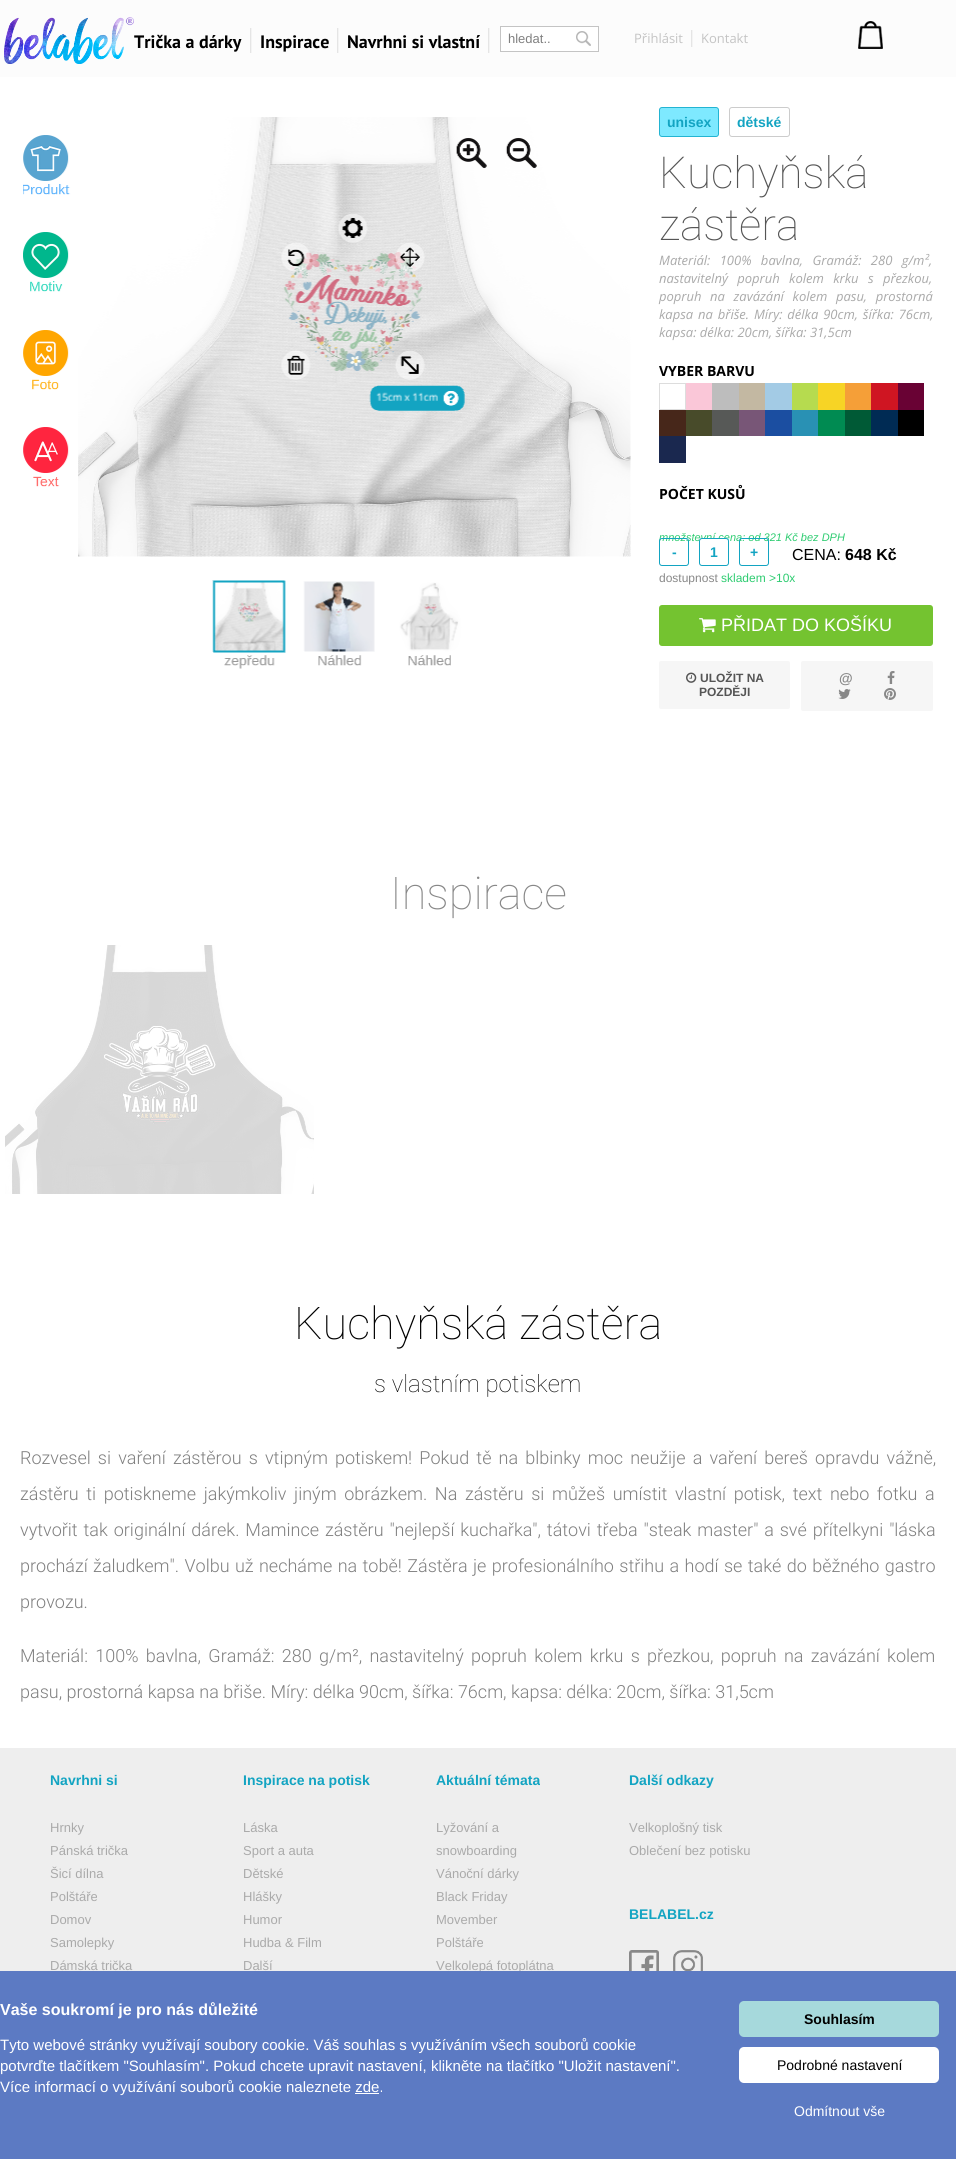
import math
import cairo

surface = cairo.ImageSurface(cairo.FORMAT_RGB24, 956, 2159)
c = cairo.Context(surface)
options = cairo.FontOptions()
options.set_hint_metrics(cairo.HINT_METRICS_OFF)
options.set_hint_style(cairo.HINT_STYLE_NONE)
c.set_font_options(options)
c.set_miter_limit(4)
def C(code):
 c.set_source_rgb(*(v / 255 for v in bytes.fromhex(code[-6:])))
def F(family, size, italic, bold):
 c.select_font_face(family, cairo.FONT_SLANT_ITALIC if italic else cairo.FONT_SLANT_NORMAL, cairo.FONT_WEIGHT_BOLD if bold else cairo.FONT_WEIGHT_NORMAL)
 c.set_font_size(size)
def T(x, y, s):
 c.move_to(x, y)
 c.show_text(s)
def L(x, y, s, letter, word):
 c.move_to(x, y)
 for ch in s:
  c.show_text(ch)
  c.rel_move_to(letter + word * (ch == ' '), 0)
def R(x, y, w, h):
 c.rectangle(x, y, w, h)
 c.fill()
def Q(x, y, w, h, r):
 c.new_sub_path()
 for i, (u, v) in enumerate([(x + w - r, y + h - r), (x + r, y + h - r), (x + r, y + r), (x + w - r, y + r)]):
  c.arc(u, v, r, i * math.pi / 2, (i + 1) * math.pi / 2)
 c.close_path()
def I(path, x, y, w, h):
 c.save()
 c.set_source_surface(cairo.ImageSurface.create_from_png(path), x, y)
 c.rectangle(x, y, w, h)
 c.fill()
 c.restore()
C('ffffff')
c.paint()
C('fcfcfc')
R(0,0,956,77)
I('1.png',4,17,130,47)
F('PT Sans',18,0,1)
C('000000')
T(134,48,'Trička a dárky')
I('2.png',250,28,2,25)
T(260,48,'Inspirace')
I('2.png',337,28,2,25)
T(347,48,'Navrhni si vlastní')
I('2.png',488,28,2,25)
C('ffffff')
c.rectangle(500.5,26.5,98,25)
c.fill_preserve()
C('c4c4c4')
c.set_line_width(1)
c.stroke()
F('Liberation Sans',13,0,0)
C('808080')
T(508,43,'hledat..')
I('3.png',576,31,15,15)
F('Open Sans',13,0,0)
C('c4c4c4')
T(634,43,'Přihlásit')
I('4.png',691,30,2,17)
T(701,43,'Kontakt')
I('5.png',858,21,25,28)
I('6.png',23,117,608,552)
C('7ee9ff')
Q(659.5,107.5,59,29,2.5)
c.fill_preserve()
C('23b4d2')
c.stroke()
F('Liberation Sans',14,0,1)
C('13a4c2')
T(667,127,'unisex')
Q(729.5,107.5,60,29,2.5)
C('cccccc')
c.stroke()
C('13a4c2')
T(737,127,'dětské')
F('Roboto Thin',44,0,0)
C('555555')
T(659,188,'Kuchyňská')
T(659,240,'zástěra')
F('Open Sans',13,1,0)
C('aaaaaa')
L(659,265,'Materiál: 100% bavlna, Gramáž: 280 g/m²,',0,6)
L(659,283,'nastavitelný popruh kolem krku s přezkou,',0,6)
L(659,301,'popruh na zavázání kolem pasu, prostorná',0,5.25)
L(659,319,'kapsa na břiše. Míry: délka 90cm, šířka: 76cm,',0,1.5)
T(659,337,'kapsa: délka: 20cm, šířka: 31,5cm')
F('Open Sans',14,0,1)
C('000000')
T(659,376,'VYBER BARVU')
c.rectangle(659.5,383.5,26,26)
C('dddddd')
c.stroke()
C('fac7d8')
R(686,383,26,27)
C('bdbdbd')
R(712,383,27,27)
C('c3b8a2')
R(739,383,26,27)
C('a3cbe5')
R(765,383,27,27)
C('b6db4f')
R(792,383,26,27)
C('f7d425')
R(818,383,27,27)
C('f59f38')
R(845,383,26,27)
C('cf1522')
R(871,383,27,27)
C('690234')
R(898,383,26,27)
C('47271a')
R(659,410,27,26)
C('484b2a')
R(686,410,26,26)
C('575957')
R(712,410,27,26)
C('785677')
R(739,410,26,26)
C('1b4ea1')
R(765,410,27,26)
C('2991b4')
R(792,410,26,26)
C('008b52')
R(818,410,27,26)
C('005a36')
R(845,410,26,26)
C('002b54')
R(871,410,27,26)
C('000000')
R(898,410,26,26)
C('1a284f')
R(659,436,27,27)
C('000000')
T(659,499,'POČET KUSŮ')
F('Liberation Sans',11,1,0)
C('2ecc71')
T(659,541,'množstevní cena: od 321 Kč bez DPH')
Q(659.5,538.5,29,27,2.5)
C('13a4c2')
c.stroke()
F('Liberation Sans',14,0,1)
T(672,557,'-')
C('ffffff')
Q(699.5,538.5,29,27,2.5)
c.fill_preserve()
C('13a4c2')
c.stroke()
T(710,557,'1')
Q(739.5,538.5,29,27,2.5)
c.stroke()
T(750,557,'+')
F('Liberation Sans',16,0,0)
C('000000')
T(792,560,'CENA:')
F('Liberation Sans',16,0,1)
T(845,560,'648 Kč')
F('Liberation Sans',12,0,0)
C('888888')
T(659,582,'dostupnost')
C('2ecc71')
T(721,582,'skladem >10x')
C('74c330')
Q(659,605,274,41,3)
c.fill()
I('7.png',699,618,17,15)
F('Liberation Sans',18,0,0)
C('ffffff')
T(721,631,'PŘIDAT DO KOŠÍKU')
C('f6f6f6')
Q(659,661,131,48,2)
c.fill()
I('8.png',686,672,11,11)
F('Liberation Sans',12,0,1)
C('555555')
T(700,682,'ULOŽIT NA')
T(699,696,'POZDĚJI')
C('f6f6f6')
Q(801,661,132,50,2)
c.fill()
F('Liberation Sans',14,0,1)
C('888888')
T(839,683,'@')
I('9.png',887,671,8,13)
I('10.png',838,689,13,10)
I('11.png',884,688,12,12)
F('Roboto Thin',45,0,0)
T(390,909,'Inspirace')
I('12.png',5,945,309,249)
C('000000')
T(294,1339,'Kuchyňská zástěra')
F('Roboto Thin',24,0,0)
T(374,1392,'s vlastním potiskem')
F('Roboto Light',18,0,0)
C('808080')
L(20,1464,'Rozvesel si vaření zástěrou s vtipným potiskem! Pokud tě na blbinky moc neužije a vaření bereš opravdu vážně,',0,2.75)
L(20,1500,'zástěru ti potiskneme jakýmkoliv jiným obrázkem. Na zástěru si můžeš umístit vlastní potisk, text nebo fotku a',0,3.25)
L(20,1536,'vytvořit tak originální dárek. Mamince zástěru "nejlepší kuchařka", tátovi třeba "steak master" a své přítelkyni "láska',0,1.5)
L(20,1572,'prochází žaludkem". Volbu už necháme na tobě! Zástěra je profesionálního střihu a hodí se také do běžného gastro',0,1)
T(20,1608,'provozu.')
L(20,1662,'Materiál: 100% bavlna, Gramáž: 280 g/m², nastavitelný popruh kolem krku s přezkou, popruh na zavázání kolem',0,2.9)
T(20,1698,'pasu, prostorná kapsa na břiše. Míry: délka 90cm, šířka: 76cm, kapsa: délka: 20cm, šířka: 31,5cm')
C('eeeeee')
R(0,1748,956,223)
F('Liberation Sans',14,0,1)
C('13a4c2')
T(50,1785,'Navrhni si')
F('Liberation Sans',13,0,0)
C('aaaaaa')
T(50,1832,'Hrnky')
T(50,1855,'Pánská trička')
T(50,1878,'Šicí dílna')
T(50,1901,'Polštáře')
T(50,1924,'Domov')
T(50,1947,'Samolepky')
T(50,1970,'Dámská trička')
F('Liberation Sans',14,0,1)
C('13a4c2')
T(243,1785,'Inspirace na potisk')
F('Liberation Sans',13,0,0)
C('aaaaaa')
T(243,1832,'Láska')
T(243,1855,'Sport a auta')
T(243,1878,'Dětské')
T(243,1901,'Hlášky')
T(243,1924,'Humor')
T(243,1947,'Hudba & Film')
T(243,1970,'Další')
F('Liberation Sans',14,0,1)
C('13a4c2')
T(436,1785,'Aktuální témata')
F('Liberation Sans',13,0,0)
C('aaaaaa')
T(436,1832,'Lyžování a')
T(436,1855,'snowboarding')
T(436,1878,'Vánoční dárky')
T(436,1901,'Black Friday')
T(436,1924,'Movember')
T(436,1947,'Polštáře')
T(436,1970,'Velkolepá fotoplátna')
F('Liberation Sans',14,0,1)
C('13a4c2')
T(629,1785,'Další odkazy')
F('Liberation Sans',13,0,0)
C('aaaaaa')
T(629,1832,'Velkoplošný tisk')
T(629,1855,'Oblečení bez potisku')
F('Liberation Sans',14,0,1)
C('13a4c2')
T(629,1919,'BELABEL.cz')
I('13.png',629,1950,30,21)
I('14.png',673,1950,30,21)
C('5c7ac3')
R(0,1971,956,188)
F('Liberation Sans',16,0,1)
C('ffffff')
T(0,2015,'Vaše soukromí je pro nás důležité')
F('Liberation Sans',15,0,0)
T(0,2050,'Tyto webové stránky využívají soubory cookie. Váš souhlas s využíváním všech souborů cookie')
T(0,2071,'potvrďte tlačítkem "Souhlasím". Pokud chcete upravit nastavení, klikněte na tlačítko "Uložit nastavení".')
T(0,2092,'Více informací o využívání souborů cookie naleznete zde.')
R(355,2093,24,1)
C('a6d9dc')
Q(739,2001,200,36,5)
c.fill()
F('Liberation Sans',14,0,1)
C('000000')
T(804,2024,'Souhlasím')
C('ffffff')
Q(739,2047,200,36,5)
c.fill()
F('Liberation Sans',14,0,0)
C('000000')
T(777,2070,'Podrobné nastavení')
C('ffffff')
T(794,2116,'Odmítnout vše')
surface.write_to_png('o.png')
